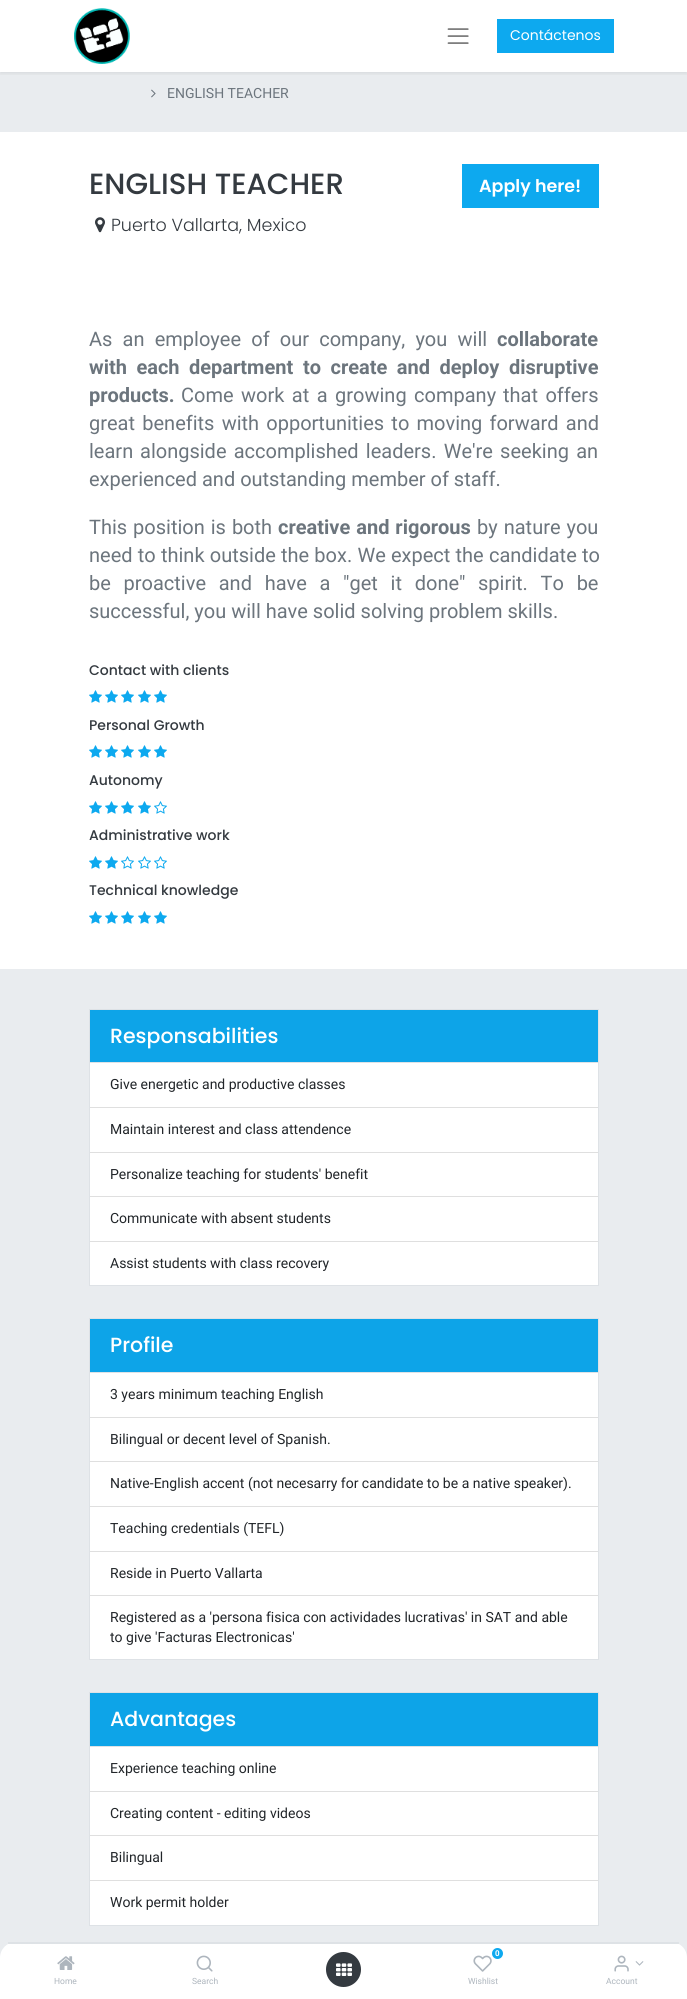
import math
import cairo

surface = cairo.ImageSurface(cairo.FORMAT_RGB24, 687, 1999)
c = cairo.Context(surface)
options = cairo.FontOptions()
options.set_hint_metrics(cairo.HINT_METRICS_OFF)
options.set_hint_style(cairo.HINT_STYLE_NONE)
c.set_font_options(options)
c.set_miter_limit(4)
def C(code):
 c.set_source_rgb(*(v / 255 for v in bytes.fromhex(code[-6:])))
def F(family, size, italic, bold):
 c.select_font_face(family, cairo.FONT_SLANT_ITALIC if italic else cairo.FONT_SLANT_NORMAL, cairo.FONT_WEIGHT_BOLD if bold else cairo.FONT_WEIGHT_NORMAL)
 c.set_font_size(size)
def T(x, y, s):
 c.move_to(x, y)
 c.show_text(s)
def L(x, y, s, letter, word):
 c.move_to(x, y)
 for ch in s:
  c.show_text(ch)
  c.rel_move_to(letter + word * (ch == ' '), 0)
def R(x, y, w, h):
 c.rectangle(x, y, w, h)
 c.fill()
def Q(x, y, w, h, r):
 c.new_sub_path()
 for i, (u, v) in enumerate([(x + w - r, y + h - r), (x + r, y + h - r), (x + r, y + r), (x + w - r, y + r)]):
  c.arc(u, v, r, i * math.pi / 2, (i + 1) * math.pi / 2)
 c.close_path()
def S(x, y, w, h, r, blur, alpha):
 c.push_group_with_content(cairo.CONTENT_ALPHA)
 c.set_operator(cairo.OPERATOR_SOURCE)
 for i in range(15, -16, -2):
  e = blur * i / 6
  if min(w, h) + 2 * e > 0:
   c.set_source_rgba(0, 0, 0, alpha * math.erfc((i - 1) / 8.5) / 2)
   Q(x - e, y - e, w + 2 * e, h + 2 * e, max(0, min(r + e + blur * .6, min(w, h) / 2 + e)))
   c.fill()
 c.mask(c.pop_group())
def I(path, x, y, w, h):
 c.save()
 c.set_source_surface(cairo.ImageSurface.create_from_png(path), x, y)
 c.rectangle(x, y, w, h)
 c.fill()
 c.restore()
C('ffffff')
c.paint()
C('e9ecef')
R(0,72,687,60)
c.save()
c.rectangle(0,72,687,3)
c.clip()
C('000000')
S(0,2,687,72,0,2,.07)
c.restore()
I('1.png',74,8,56,56)
I('2.png',447,28,22,16)
C('0da9ef')
R(497,19,117,34)
F('Poppins',14,0,0)
C('ffffff')
T(510,40,'Contáctenos')
I('3.png',151,89,5,9)
F('Roboto',14,0,0)
C('6c757d')
T(167,98,'ENGLISH TEACHER')
F('Poppins Medium',29.25,0,0)
C('343a40')
T(89,194,'ENGLISH TEACHER')
C('0da9ef')
R(462,164,137,44)
F('Poppins SemiBold',17.5,0,0)
C('ffffff')
T(479,192,'Apply here!')
I('4.png',95,217,10,16)
F('Poppins Light',17.5,0,0)
C('343a40')
T(111,231,'Puerto Vallarta, Mexico')
F('Roboto',20,0,0)
C('6c757d')
L(89,346,'As an employee of our company, you will',0,5.25)
F('Roboto',20,0,1)
T(497,346,'collaborate')
L(89,374,'with each department',0,4.5)
L(303,374,'to create and deploy disruptive',0,4.5)
T(89,402,'products.')
F('Roboto',20,0,0)
L(181,402,'Come work at a growing company',0,2.5)
L(503,402,'that offers',0,2.5)
L(89,430,'great benefits with opportunities to moving forward and',0,2.25)
T(89,458,'learn')
L(140,458,'alongside accomplished leaders. We\'re seeking an',0,2.25)
T(89,486,'experienced and outstanding member of staff.')
L(89,534,'This position is both',0,1)
F('Roboto',20,0,1)
L(278,534,'creative and rigorous',0,1)
F('Roboto',20,0,0)
L(477,534,'by nature you',0,1)
L(89,562,'need to think outside the box. We expect the candidate to',0,.25)
L(89,590,'be proactive and have a "get it done"',0,7.75)
L(478,590,'spirit. To be',0,7.75)
T(89,618,'successful, you will have solid solving problem skills.')
F('Poppins Medium',14,0,0)
C('343a40')
T(89,675,'Contact with clients')
I('5.png',89,690,13,13)
I('5.png',105,690,13,13)
I('5.png',121,690,13,13)
I('5.png',138,690,13,13)
I('5.png',154,690,13,13)
T(89,730,'Personal Growth')
I('5.png',89,745,13,13)
I('5.png',105,745,13,13)
I('5.png',121,745,13,13)
I('5.png',138,745,13,13)
I('5.png',154,745,13,13)
T(89,785,'Autonomy')
I('5.png',89,801,13,13)
I('5.png',105,801,13,13)
I('5.png',121,801,13,13)
I('5.png',138,801,13,13)
I('6.png',154,801,13,13)
T(89,840,'Administrative work')
I('5.png',89,856,13,13)
I('5.png',105,856,13,13)
I('6.png',121,856,13,13)
I('6.png',138,856,13,13)
I('6.png',154,856,13,13)
T(89,895,'Technical knowledge')
I('5.png',89,911,13,13)
I('5.png',105,911,13,13)
I('5.png',121,911,13,13)
I('5.png',138,911,13,13)
I('5.png',154,911,13,13)
C('e9ecef')
R(0,969,687,989)
c.rectangle(89.5,1009.5,509,276)
C('dee2e6')
c.set_line_width(1)
c.stroke()
C('0da4e8')
R(90,1010,508,52)
C('dee2e6')
R(90,1062,508,1)
F('Poppins Medium',20.5,0,0)
C('ffffff')
T(110,1043,'Responsabilities')
R(90,1063,508,44)
F('Roboto',14,0,0)
C('212529')
T(110,1089,'Give energetic and productive classes')
C('ffffff')
R(90,1108,508,44)
C('dfdfdf')
R(90,1107,508,1)
C('212529')
T(110,1134,'Maintain interest and class attendence')
C('ffffff')
R(90,1153,508,43)
C('dfdfdf')
R(90,1152,508,1)
C('212529')
T(110,1179,'Personalize teaching for students\' benefit')
C('ffffff')
R(90,1197,508,44)
C('dfdfdf')
R(90,1196,508,1)
C('212529')
T(110,1223,'Communicate with absent students')
C('ffffff')
R(90,1242,508,43)
C('dfdfdf')
R(90,1241,508,1)
C('212529')
T(110,1268,'Assist students with class recovery')
c.rectangle(89.5,1318.5,509,341)
C('dee2e6')
c.stroke()
C('0da4e8')
R(90,1319,508,53)
C('dee2e6')
R(90,1372,508,1)
F('Poppins Medium',20.5,0,0)
C('ffffff')
T(110,1352,'Profile')
R(90,1373,508,44)
F('Roboto',14,0,0)
C('212529')
T(110,1399,'3 years minimum teaching English')
C('ffffff')
R(90,1418,508,43)
C('dfdfdf')
R(90,1417,508,1)
C('212529')
T(110,1444,'Bilingual or decent level of Spanish.')
C('ffffff')
R(90,1462,508,44)
C('dfdfdf')
R(90,1461,508,1)
C('212529')
T(110,1488,'Native-English accent (not necesarry for candidate to be a native speaker).')
C('ffffff')
R(90,1507,508,44)
C('dfdfdf')
R(90,1506,508,1)
C('212529')
T(110,1533,'Teaching credentials (TEFL)')
C('ffffff')
R(90,1552,508,43)
C('dfdfdf')
R(90,1551,508,1)
C('212529')
T(110,1578,'Reside in Puerto Vallarta')
C('ffffff')
R(90,1596,508,63)
C('dfdfdf')
R(90,1595,508,1)
C('212529')
T(110,1622,'Registered as a \'persona fisica con actividades lucrativas\' in SAT and able')
T(110,1642,'to give \'Facturas Electronicas\'')
c.rectangle(89.5,1692.5,509,233)
C('dee2e6')
c.stroke()
C('0da4e8')
R(90,1693,508,53)
C('dee2e6')
R(90,1746,508,1)
F('Poppins Medium',20.5,0,0)
C('ffffff')
T(110,1726,'Advantages')
R(90,1747,508,44)
F('Roboto',14,0,0)
C('212529')
T(110,1773,'Experience teaching online')
C('ffffff')
R(90,1792,508,43)
C('dfdfdf')
R(90,1791,508,1)
C('212529')
T(110,1818,'Creating content - editing videos')
C('ffffff')
R(90,1836,508,44)
C('dfdfdf')
R(90,1835,508,1)
C('212529')
T(110,1862,'Bilingual')
C('ffffff')
R(90,1881,508,44)
C('dfdfdf')
R(90,1880,508,1)
C('212529')
T(110,1907,'Work permit holder')
C('ffffff')
c.new_path()
c.move_to(16,1942)
c.line_to(671,1942)
c.curve_to(680,1942,687,1949,687,1958)
c.line_to(687,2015)
c.line_to(0,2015)
c.line_to(0,1958)
c.curve_to(0,1949,7,1942,16,1942)
c.close_path()
c.fill()
C('dee2e6')
R(8,1942,671,2)
I('7.png',57,1956,18,14)
F('Roboto',8.5,0,0)
C('adb5bd')
T(54,1984,'Home')
I('8.png',196,1955,17,17)
T(192,1984,'Search')
C('343a40')
c.new_path()
c.arc(343.5,1969.5,17.5,0,2 * math.pi)
c.fill()
I('9.png',336,1963,16,13)
C('0da9ef')
c.arc(497.5,1953.5,5.5,0,2 * math.pi)
c.fill()
F('Roboto',8,0,1)
C('ffffff')
T(495,1956,'0')
I('10.png',473,1955,19,17)
F('Roboto',8.5,0,0)
C('adb5bd')
T(468,1984,'Wishlist')
I('11.png',614,1955,15,17)
I('12.png',635,1961,9,5)
T(606,1984,'Account')
surface.write_to_png('o.png')
